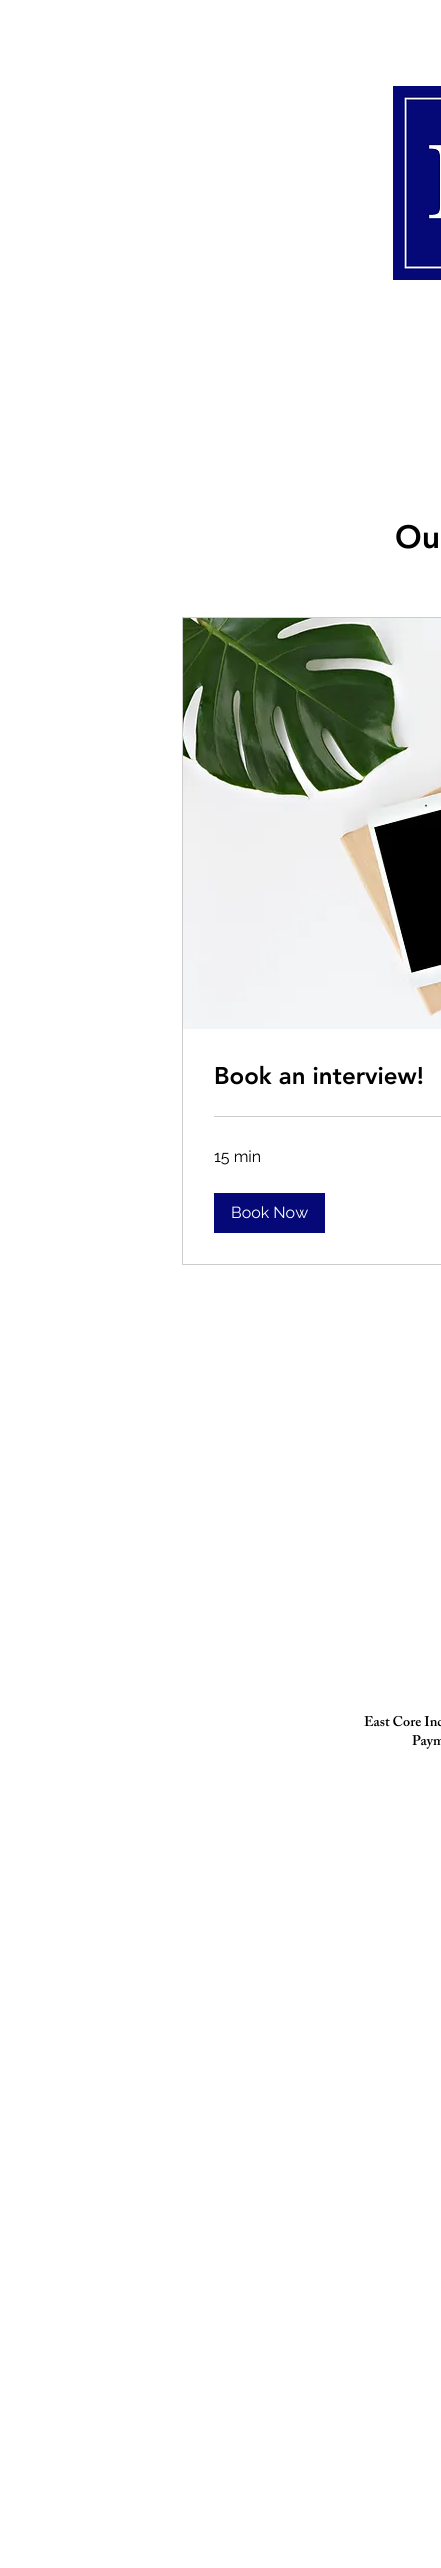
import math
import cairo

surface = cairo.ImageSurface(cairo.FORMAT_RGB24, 441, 2568)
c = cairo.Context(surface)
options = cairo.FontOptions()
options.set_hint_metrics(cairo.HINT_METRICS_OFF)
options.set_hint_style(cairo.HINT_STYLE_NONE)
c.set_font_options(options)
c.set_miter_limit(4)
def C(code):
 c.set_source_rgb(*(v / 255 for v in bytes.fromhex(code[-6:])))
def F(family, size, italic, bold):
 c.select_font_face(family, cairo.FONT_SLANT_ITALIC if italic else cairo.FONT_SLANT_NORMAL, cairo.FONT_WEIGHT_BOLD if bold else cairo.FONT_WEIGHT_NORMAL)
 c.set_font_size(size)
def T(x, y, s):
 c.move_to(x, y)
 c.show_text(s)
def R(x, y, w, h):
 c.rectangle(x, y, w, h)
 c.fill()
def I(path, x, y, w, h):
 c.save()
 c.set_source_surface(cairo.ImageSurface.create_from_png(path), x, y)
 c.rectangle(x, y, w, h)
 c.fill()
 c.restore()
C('ffffff')
c.paint()
I('1.png',393,86,48,194)
F('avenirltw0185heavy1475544 Black',32,0,0)
C('000000')
T(395,548,'Ou')
c.rectangle(182.5,617.5,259,647)
C('cccccc')
c.set_line_width(1)
c.stroke()
I('2.png',183,618,258,411)
F('avenirltw0185heavy1475544 Black',24,0,0)
C('000000')
T(214,1084,'Book an interview!')
C('cccccc')
R(214,1116,227,1)
F('Raleway',16,0,0)
C('000000')
T(214,1162,'15 min')
C('050978')
R(214,1193,111,40)
C('ffffff')
T(231,1218,'Book Now')
F('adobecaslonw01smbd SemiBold',14,0,0)
C('000000')
T(364,1726,'East Core Inc')
T(412,1745,'Paym')
surface.write_to_png('o.png')
